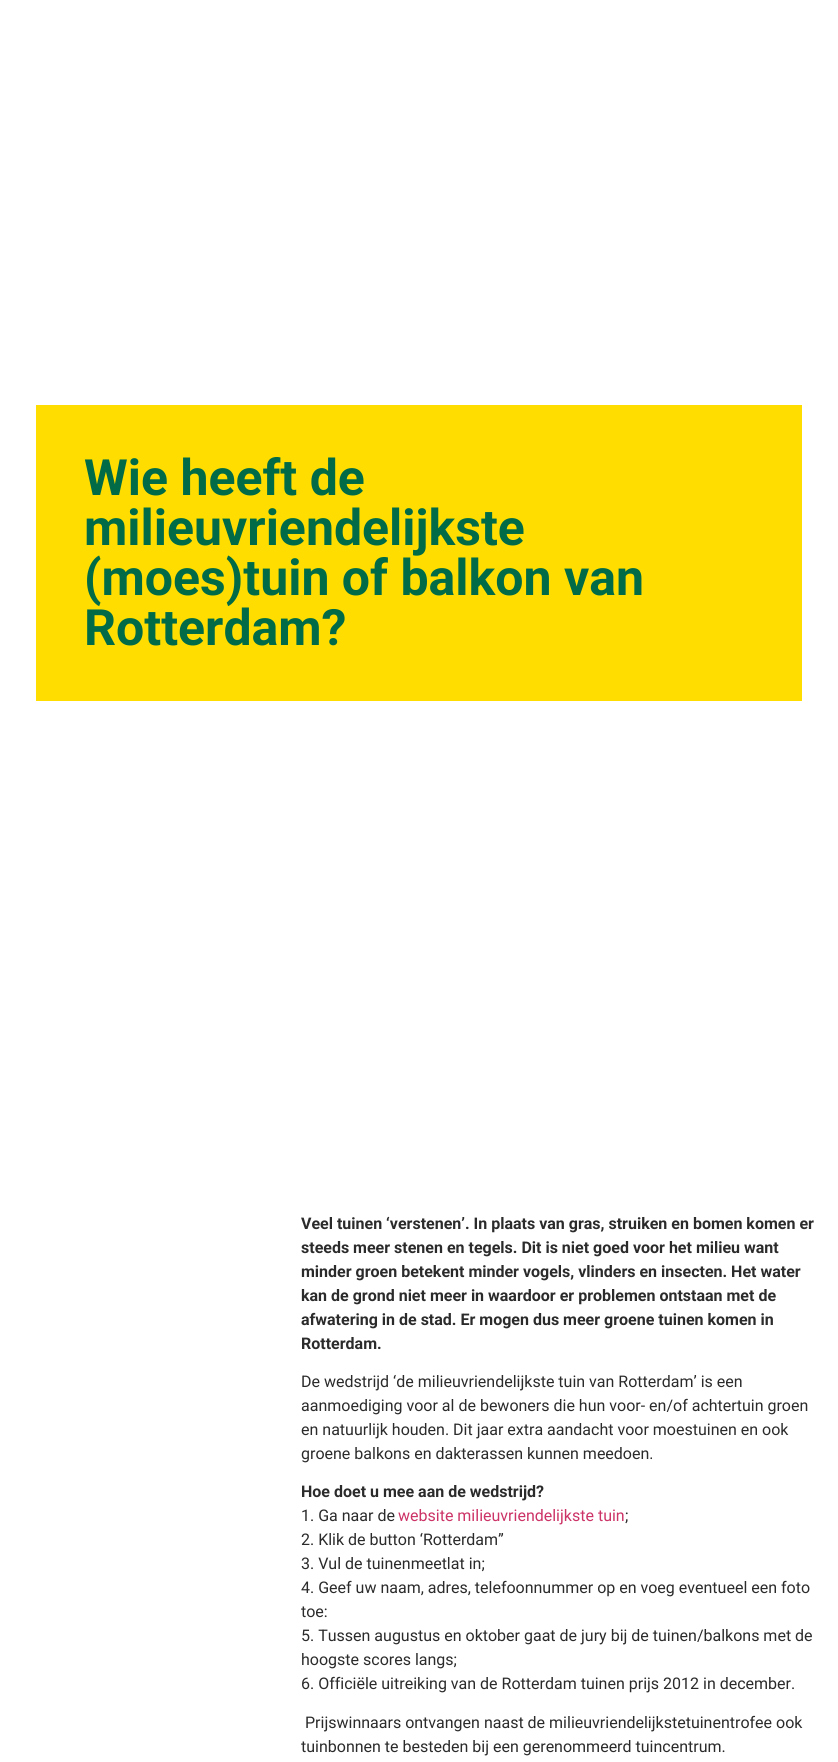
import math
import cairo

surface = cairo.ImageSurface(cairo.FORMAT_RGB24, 838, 1762)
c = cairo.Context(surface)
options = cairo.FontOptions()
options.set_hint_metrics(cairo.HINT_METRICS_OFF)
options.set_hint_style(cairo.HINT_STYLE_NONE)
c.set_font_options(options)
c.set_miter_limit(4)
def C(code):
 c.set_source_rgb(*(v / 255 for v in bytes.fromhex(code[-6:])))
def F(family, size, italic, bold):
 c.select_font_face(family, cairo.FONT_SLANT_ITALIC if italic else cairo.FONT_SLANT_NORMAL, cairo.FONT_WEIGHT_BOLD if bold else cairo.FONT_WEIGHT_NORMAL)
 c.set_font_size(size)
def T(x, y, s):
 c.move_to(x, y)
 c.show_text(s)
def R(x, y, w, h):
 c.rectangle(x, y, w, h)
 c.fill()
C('ffffff')
c.paint()
C('ffdd00')
R(36,405,766,296)
F('Roboto',50,0,1)
C('006b46')
T(84,495,'Wie heeft de')
T(84,545,'milieuvriendelijkste')
T(84,595,'(moes)tuin of balkon van')
T(84,645,'Rotterdam?')
F('Roboto',16,0,1)
C('2b2b2b')
T(301,1229,'Veel tuinen ‘verstenen’. In plaats van gras, struiken en bomen komen er')
T(301,1253,'steeds meer stenen en tegels. Dit is niet goed voor het milieu want')
T(301,1277,'minder groen betekent minder vogels, vlinders en insecten. Het water')
T(301,1301,'kan de grond niet meer in waardoor er problemen ontstaan met de')
T(301,1325,'afwatering in de stad. Er mogen dus meer groene tuinen komen in')
T(301,1349,'Rotterdam.')
F('Roboto',16,0,0)
T(301,1387,'De wedstrijd ‘de milieuvriendelijkste tuin van Rotterdam’ is een')
T(301,1411,'aanmoediging voor al de bewoners die hun voor- en/of achtertuin groen')
T(301,1435,'en natuurlijk houden. Dit jaar extra aandacht voor moestuinen en ook')
T(301,1459,'groene balkons en dakterassen kunnen meedoen.')
F('Roboto',16,0,1)
T(301,1497,'Hoe doet u mee aan de wedstrijd?')
F('Roboto',16,0,0)
T(301,1521,'1. Ga naar de')
C('cc3366')
T(398,1521,'website milieuvriendelijkste tuin')
C('2b2b2b')
T(625,1521,';')
T(301,1545,'2. Klik de button ‘Rotterdam”')
T(301,1569,'3. Vul de tuinenmeetlat in;')
T(301,1593,'4. Geef uw naam, adres, telefoonnummer op en voeg eventueel een foto')
T(301,1617,'toe:')
T(301,1641,'5. Tussen augustus en oktober gaat de jury bij de tuinen/balkons met de')
T(301,1665,'hoogste scores langs;')
T(301,1689,'6. Officiële uitreiking van de Rotterdam tuinen prijs 2012 in december.')
T(305,1728,'Prijswinnaars ontvangen naast de milieuvriendelijkstetuinentrofee ook')
T(301,1752,'tuinbonnen te besteden bij een gerenommeerd tuincentrum.')
surface.write_to_png('o.png')
